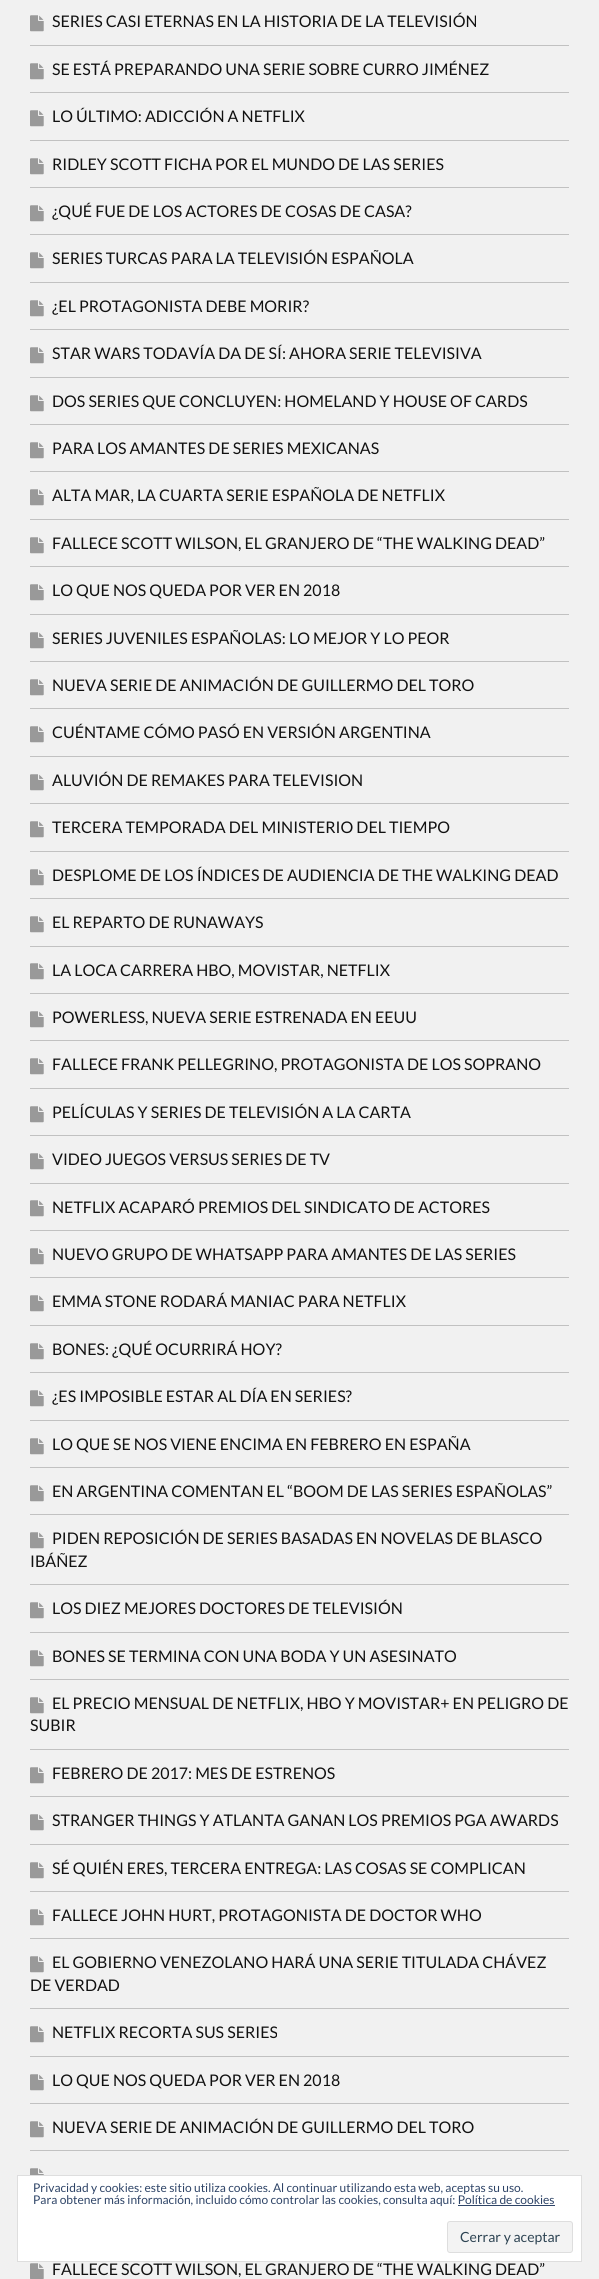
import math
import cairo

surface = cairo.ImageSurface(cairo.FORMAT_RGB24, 599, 2279)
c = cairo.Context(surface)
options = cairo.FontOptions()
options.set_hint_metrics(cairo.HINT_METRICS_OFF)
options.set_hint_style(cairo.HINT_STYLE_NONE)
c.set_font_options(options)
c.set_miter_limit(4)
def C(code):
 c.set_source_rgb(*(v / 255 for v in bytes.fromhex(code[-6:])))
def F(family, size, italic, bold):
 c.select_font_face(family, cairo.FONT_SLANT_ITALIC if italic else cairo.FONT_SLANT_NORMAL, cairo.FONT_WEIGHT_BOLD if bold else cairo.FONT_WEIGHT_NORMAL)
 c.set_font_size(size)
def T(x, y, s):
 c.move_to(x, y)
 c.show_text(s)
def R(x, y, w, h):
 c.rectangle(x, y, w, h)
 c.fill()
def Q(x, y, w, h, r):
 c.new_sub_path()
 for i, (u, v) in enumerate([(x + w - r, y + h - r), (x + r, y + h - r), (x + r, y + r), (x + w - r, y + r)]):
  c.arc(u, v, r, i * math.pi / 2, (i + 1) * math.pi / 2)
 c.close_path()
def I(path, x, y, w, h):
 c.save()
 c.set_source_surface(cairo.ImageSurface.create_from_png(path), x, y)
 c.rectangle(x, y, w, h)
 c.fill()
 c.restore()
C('f1f1f1')
c.paint()
C('c1c1c1')
R(30,45,539,1)
I('1.png',30,15,14,17)
F('Lato',16,0,0)
C('111111')
T(52,27,'SERIES CASI ETERNAS EN LA HISTORIA DE LA TELEVISIÓN')
C('c1c1c1')
R(30,92,539,1)
I('1.png',30,63,14,17)
C('111111')
T(52,75,'SE ESTÁ PREPARANDO UNA SERIE SOBRE CURRO JIMÉNEZ')
C('c1c1c1')
R(30,140,539,1)
I('1.png',30,110,14,17)
C('111111')
T(52,122,'LO ÚLTIMO: ADICCIÓN A NETFLIX')
C('c1c1c1')
R(30,187,539,1)
I('1.png',30,158,14,17)
C('111111')
T(52,170,'RIDLEY SCOTT FICHA POR EL MUNDO DE LAS SERIES')
C('c1c1c1')
R(30,234,539,1)
I('1.png',30,205,14,17)
C('111111')
T(52,217,'¿QUÉ FUE DE LOS ACTORES DE COSAS DE CASA?')
C('c1c1c1')
R(30,282,539,1)
I('1.png',30,252,14,17)
C('111111')
T(52,264,'SERIES TURCAS PARA LA TELEVISIÓN ESPAÑOLA')
C('c1c1c1')
R(30,329,539,1)
I('1.png',30,300,14,17)
C('111111')
T(52,312,'¿EL PROTAGONISTA DEBE MORIR?')
C('c1c1c1')
R(30,377,539,1)
I('1.png',30,347,14,17)
C('111111')
T(52,359,'STAR WARS TODAVÍA DA DE SÍ: AHORA SERIE TELEVISIVA')
C('c1c1c1')
R(30,424,539,1)
I('1.png',30,395,14,17)
C('111111')
T(52,407,'DOS SERIES QUE CONCLUYEN: HOMELAND Y HOUSE OF CARDS')
C('c1c1c1')
R(30,471,539,1)
I('1.png',30,442,14,17)
C('111111')
T(52,454,'PARA LOS AMANTES DE SERIES MEXICANAS')
C('c1c1c1')
R(30,519,539,1)
I('1.png',30,489,14,17)
C('111111')
T(52,501,'ALTA MAR, LA CUARTA SERIE ESPAÑOLA DE NETFLIX')
C('c1c1c1')
R(30,566,539,1)
I('1.png',30,537,14,17)
C('111111')
T(52,549,'FALLECE SCOTT WILSON, EL GRANJERO DE “THE WALKING DEAD”')
C('c1c1c1')
R(30,614,539,1)
I('1.png',30,584,14,17)
C('111111')
T(52,596,'LO QUE NOS QUEDA POR VER EN 2018')
C('c1c1c1')
R(30,661,539,1)
I('1.png',30,632,14,17)
C('111111')
T(52,644,'SERIES JUVENILES ESPAÑOLAS: LO MEJOR Y LO PEOR')
C('c1c1c1')
R(30,708,539,1)
I('1.png',30,679,14,17)
C('111111')
T(52,691,'NUEVA SERIE DE ANIMACIÓN DE GUILLERMO DEL TORO')
C('c1c1c1')
R(30,756,539,1)
I('1.png',30,726,14,17)
C('111111')
T(52,738,'CUÉNTAME CÓMO PASÓ EN VERSIÓN ARGENTINA')
C('c1c1c1')
R(30,803,539,1)
I('1.png',30,774,14,17)
C('111111')
T(52,786,'ALUVIÓN DE REMAKES PARA TELEVISION')
C('c1c1c1')
R(30,851,539,1)
I('1.png',30,821,14,17)
C('111111')
T(52,833,'TERCERA TEMPORADA DEL MINISTERIO DEL TIEMPO')
C('c1c1c1')
R(30,898,539,1)
I('1.png',30,869,14,17)
C('111111')
T(52,881,'DESPLOME DE LOS ÍNDICES DE AUDIENCIA DE THE WALKING DEAD')
C('c1c1c1')
R(30,946,539,1)
I('1.png',30,916,14,17)
C('111111')
T(52,928,'EL REPARTO DE RUNAWAYS')
C('c1c1c1')
R(30,993,539,1)
I('1.png',30,963,14,17)
C('111111')
T(52,976,'LA LOCA CARRERA HBO, MOVISTAR, NETFLIX')
C('c1c1c1')
R(30,1040,539,1)
I('1.png',30,1011,14,17)
C('111111')
T(52,1023,'POWERLESS, NUEVA SERIE ESTRENADA EN EEUU')
C('c1c1c1')
R(30,1088,539,1)
I('1.png',30,1058,14,17)
C('111111')
T(52,1070,'FALLECE FRANK PELLEGRINO, PROTAGONISTA DE LOS SOPRANO')
C('c1c1c1')
R(30,1135,539,1)
I('1.png',30,1106,14,17)
C('111111')
T(52,1118,'PELÍCULAS Y SERIES DE TELEVISIÓN A LA CARTA')
C('c1c1c1')
R(30,1183,539,1)
I('1.png',30,1153,14,17)
C('111111')
T(52,1165,'VIDEO JUEGOS VERSUS SERIES DE TV')
C('c1c1c1')
R(30,1230,539,1)
I('1.png',30,1200,14,17)
C('111111')
T(52,1213,'NETFLIX ACAPARÓ PREMIOS DEL SINDICATO DE ACTORES')
C('c1c1c1')
R(30,1277,539,1)
I('1.png',30,1248,14,17)
C('111111')
T(52,1260,'NUEVO GRUPO DE WHATSAPP PARA AMANTES DE LAS SERIES')
C('c1c1c1')
R(30,1325,539,1)
I('1.png',30,1295,14,17)
C('111111')
T(52,1307,'EMMA STONE RODARÁ MANIAC PARA NETFLIX')
C('c1c1c1')
R(30,1372,539,1)
I('1.png',30,1343,14,17)
C('111111')
T(52,1355,'BONES: ¿QUÉ OCURRIRÁ HOY?')
C('c1c1c1')
R(30,1420,539,1)
I('1.png',30,1390,14,17)
C('111111')
T(52,1402,'¿ES IMPOSIBLE ESTAR AL DÍA EN SERIES?')
C('c1c1c1')
R(30,1467,539,1)
I('1.png',30,1438,14,17)
C('111111')
T(52,1450,'LO QUE SE NOS VIENE ENCIMA EN FEBRERO EN ESPAÑA')
C('c1c1c1')
R(30,1514,539,1)
I('1.png',30,1485,14,17)
C('111111')
T(52,1497,'EN ARGENTINA COMENTAN EL “BOOM DE LAS SERIES ESPAÑOLAS”')
C('c1c1c1')
R(30,1584,539,1)
I('1.png',30,1532,14,17)
C('111111')
T(52,1544,'PIDEN REPOSICIÓN DE SERIES BASADAS EN NOVELAS DE BLASCO')
T(30,1567,'IBÁÑEZ')
C('c1c1c1')
R(30,1632,539,1)
I('1.png',30,1602,14,17)
C('111111')
T(52,1614,'LOS DIEZ MEJORES DOCTORES DE TELEVISIÓN')
C('c1c1c1')
R(30,1679,539,1)
I('1.png',30,1650,14,17)
C('111111')
T(52,1662,'BONES SE TERMINA CON UNA BODA Y UN ASESINATO')
C('c1c1c1')
R(30,1749,539,1)
I('1.png',30,1697,14,17)
C('111111')
T(52,1709,'EL PRECIO MENSUAL DE NETFLIX, HBO Y MOVISTAR+ EN PELIGRO DE')
T(30,1731,'SUBIR')
C('c1c1c1')
R(30,1796,539,1)
I('1.png',30,1767,14,17)
C('111111')
T(52,1779,'FEBRERO DE 2017: MES DE ESTRENOS')
C('c1c1c1')
R(30,1844,539,1)
I('1.png',30,1814,14,17)
C('111111')
T(52,1826,'STRANGER THINGS Y ATLANTA GANAN LOS PREMIOS PGA AWARDS')
C('c1c1c1')
R(30,1891,539,1)
I('1.png',30,1862,14,17)
C('111111')
T(52,1874,'SÉ QUIÉN ERES, TERCERA ENTREGA: LAS COSAS SE COMPLICAN')
C('c1c1c1')
R(30,1938,539,1)
I('1.png',30,1909,14,17)
C('111111')
T(52,1921,'FALLECE JOHN HURT, PROTAGONISTA DE DOCTOR WHO')
C('c1c1c1')
R(30,2008,539,1)
I('1.png',30,1956,14,17)
C('111111')
T(52,1968,'EL GOBIERNO VENEZOLANO HARÁ UNA SERIE TITULADA CHÁVEZ')
T(30,1991,'DE VERDAD')
C('c1c1c1')
R(30,2056,539,1)
I('1.png',30,2026,14,17)
C('111111')
T(52,2038,'NETFLIX RECORTA SUS SERIES')
C('c1c1c1')
R(30,2103,539,1)
I('1.png',30,2074,14,17)
C('111111')
T(52,2086,'LO QUE NOS QUEDA POR VER EN 2018')
C('c1c1c1')
R(30,2150,539,1)
I('1.png',30,2121,14,17)
C('111111')
T(52,2133,'NUEVA SERIE DE ANIMACIÓN DE GUILLERMO DEL TORO')
I('2.png',30,2168,14,7)
I('3.png',30,2263,14,16)
T(52,2275,'FALLECE SCOTT WILSON, EL GRANJERO DE “THE WALKING DEAD”')
C('ffffff')
c.rectangle(17.5,2175.5,564,86)
c.fill_preserve()
C('dedede')
c.set_line_width(1)
c.stroke()
F('Lato',12,0,0)
C('2e4467')
T(33,2192,'Privacidad y cookies: este sitio utiliza cookies. Al continuar utilizando esta web, aceptas su uso.')
T(33,2204,'Para obtener más información, incluido cómo controlar las cookies, consulta aquí: Política de cookies')
R(458,2205,97,1)
C('f3f3f3')
Q(447.5,2221.5,125,31,2.5)
c.fill_preserve()
C('dedede')
c.stroke()
F('Lato',14,0,0)
C('2e4453')
T(460,2242,'Cerrar y aceptar')
surface.write_to_png('o.png')
